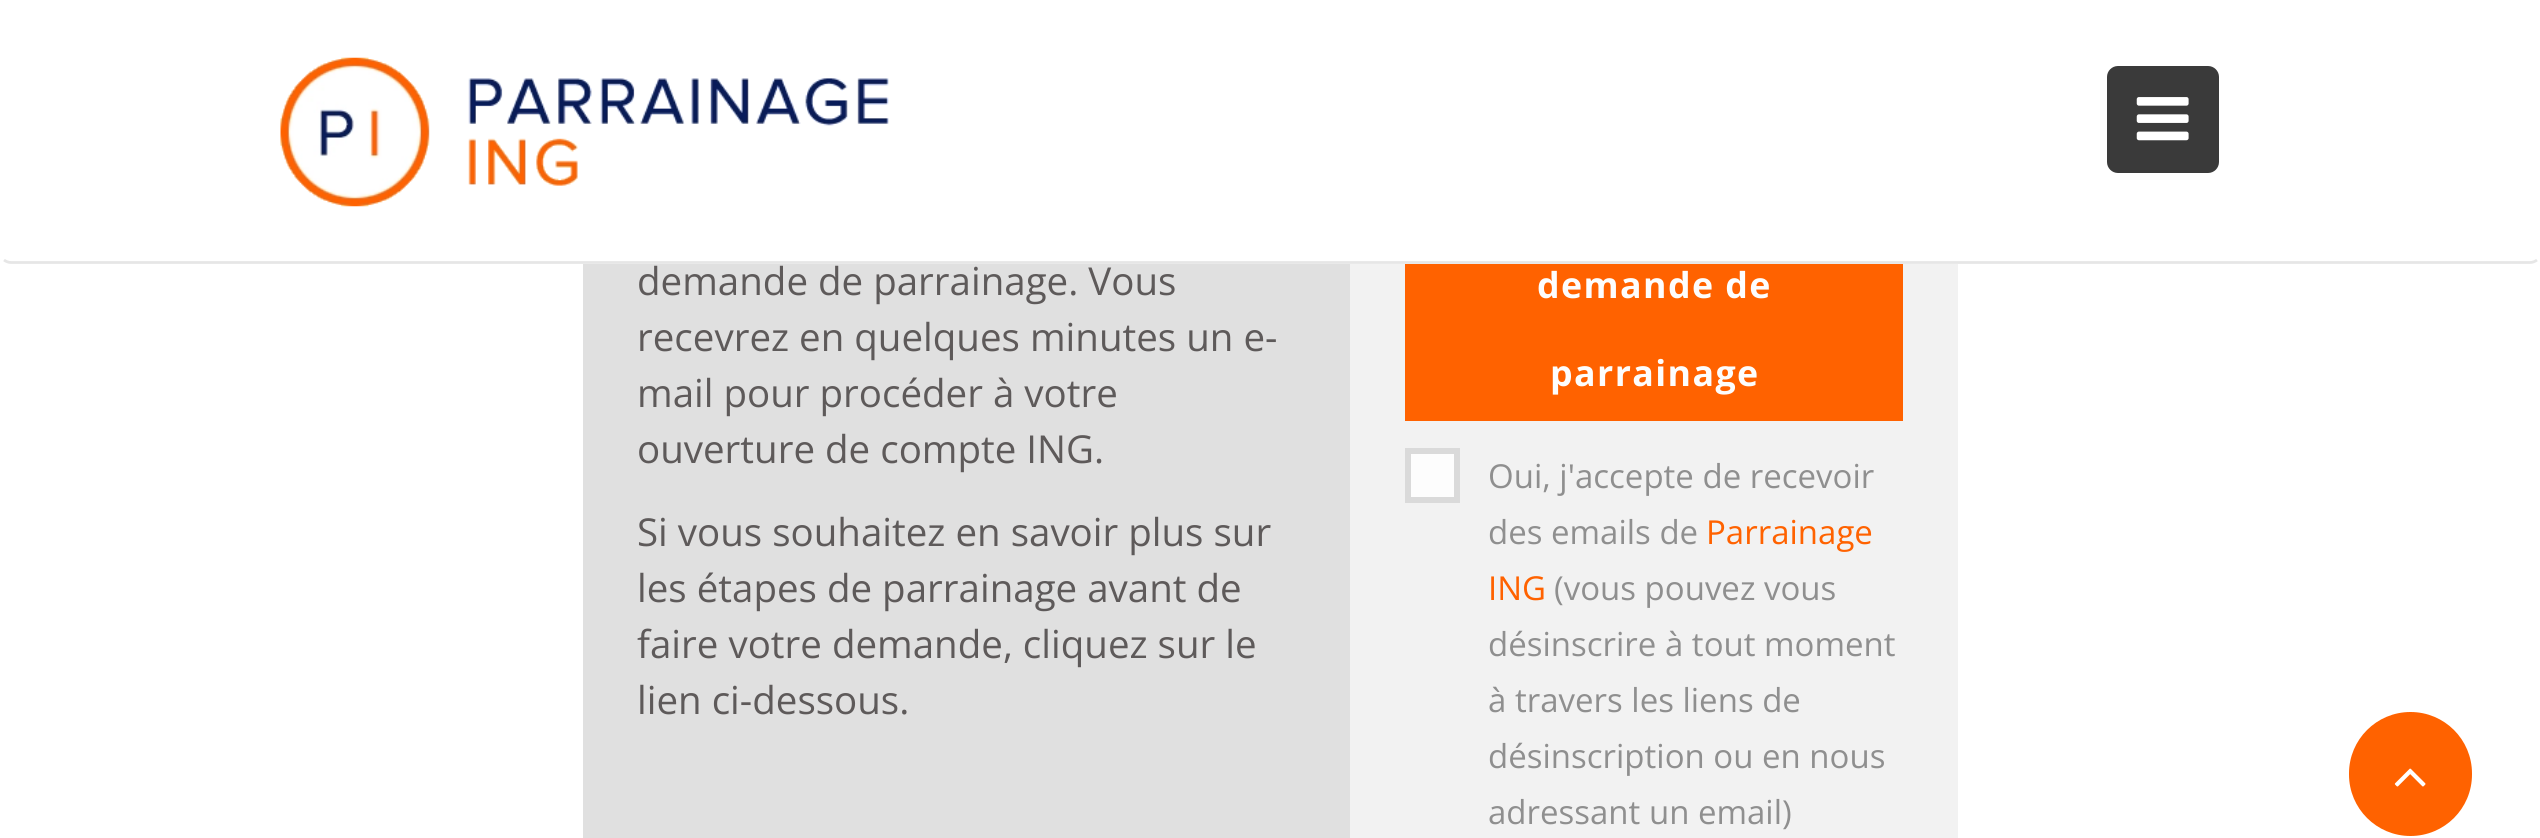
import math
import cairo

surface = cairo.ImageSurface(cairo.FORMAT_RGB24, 2540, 838)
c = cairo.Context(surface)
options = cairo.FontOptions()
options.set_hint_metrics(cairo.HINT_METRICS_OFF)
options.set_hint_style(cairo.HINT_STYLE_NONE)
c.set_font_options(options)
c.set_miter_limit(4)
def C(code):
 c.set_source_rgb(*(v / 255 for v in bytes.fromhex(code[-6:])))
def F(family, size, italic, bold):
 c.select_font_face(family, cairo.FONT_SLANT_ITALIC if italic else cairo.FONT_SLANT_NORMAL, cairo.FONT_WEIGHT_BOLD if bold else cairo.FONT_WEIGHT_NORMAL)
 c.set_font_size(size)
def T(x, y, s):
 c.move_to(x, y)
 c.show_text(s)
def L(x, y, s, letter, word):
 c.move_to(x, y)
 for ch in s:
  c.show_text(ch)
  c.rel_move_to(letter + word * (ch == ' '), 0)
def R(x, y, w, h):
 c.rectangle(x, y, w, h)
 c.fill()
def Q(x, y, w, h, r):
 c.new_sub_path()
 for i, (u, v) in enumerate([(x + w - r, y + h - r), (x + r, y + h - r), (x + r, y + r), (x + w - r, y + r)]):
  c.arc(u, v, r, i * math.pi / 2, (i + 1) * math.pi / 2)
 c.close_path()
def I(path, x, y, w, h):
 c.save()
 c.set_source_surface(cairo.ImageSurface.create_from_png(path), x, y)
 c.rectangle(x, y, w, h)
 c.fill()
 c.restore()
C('ffffff')
c.paint()
c.new_path()
c.move_to(2537,260)
c.curve_to(2535,261.5,2532.5,262.5,2530,262.5)
c.line_to(11,262.5)
c.curve_to(8.5,262.5,6,261.5,4,260)
C('e6e6e6')
c.set_line_width(2.8)
c.stroke()
I('1.png',280,57,609,150)
C('3a3a3a')
Q(2107,66,112,107,11)
c.fill()
I('2.png',2136,97,53,44)
C('e0e0e0')
R(583,264,767,574)
F('Open Sans',38.5,0,0)
C('5e5a5a')
T(637,295,'demande de parrainage. Vous')
T(637,351,'recevrez en quelques minutes un e-')
T(637,407,'mail pour procéder à votre')
T(637,463,'ouverture de compte ING.')
T(637,546,'Si vous souhaitez en savoir plus sur')
T(637,602,'les étapes de parrainage avant de')
T(637,658,'faire votre demande, cliquez sur le')
T(637,714,'lien ci-dessous.')
C('f2f2f2')
R(1350,264,608,574)
C('ff6200')
R(1405,264,498,157)
F('Open Sans',35.75,0,1)
C('fdfdfd')
L(1537,298,'demande de',1.4,0)
L(1550,386,'parrainage',1.4,0)
c.rectangle(1408,451,49,49)
c.fill_preserve()
C('dadada')
c.set_line_width(6)
c.stroke()
F('Open Sans',33,0,0)
C('8f8f8f')
T(1488,488,'Oui, j\'accepte de recevoir')
T(1488,544,'des emails de')
C('ff6200')
T(1706,544,'Parrainage')
T(1488,600,'ING')
C('8f8f8f')
T(1554,600,'(vous pouvez vous')
T(1488,656,'désinscrire à tout moment')
T(1488,712,'à travers les liens de')
T(1488,768,'désinscription ou en nous')
T(1488,824,'adressant un email)')
C('ff6200')
Q(2349,712,123,124,61.5)
c.fill()
I('3.png',2394,768,32,19)
surface.write_to_png('o.png')
